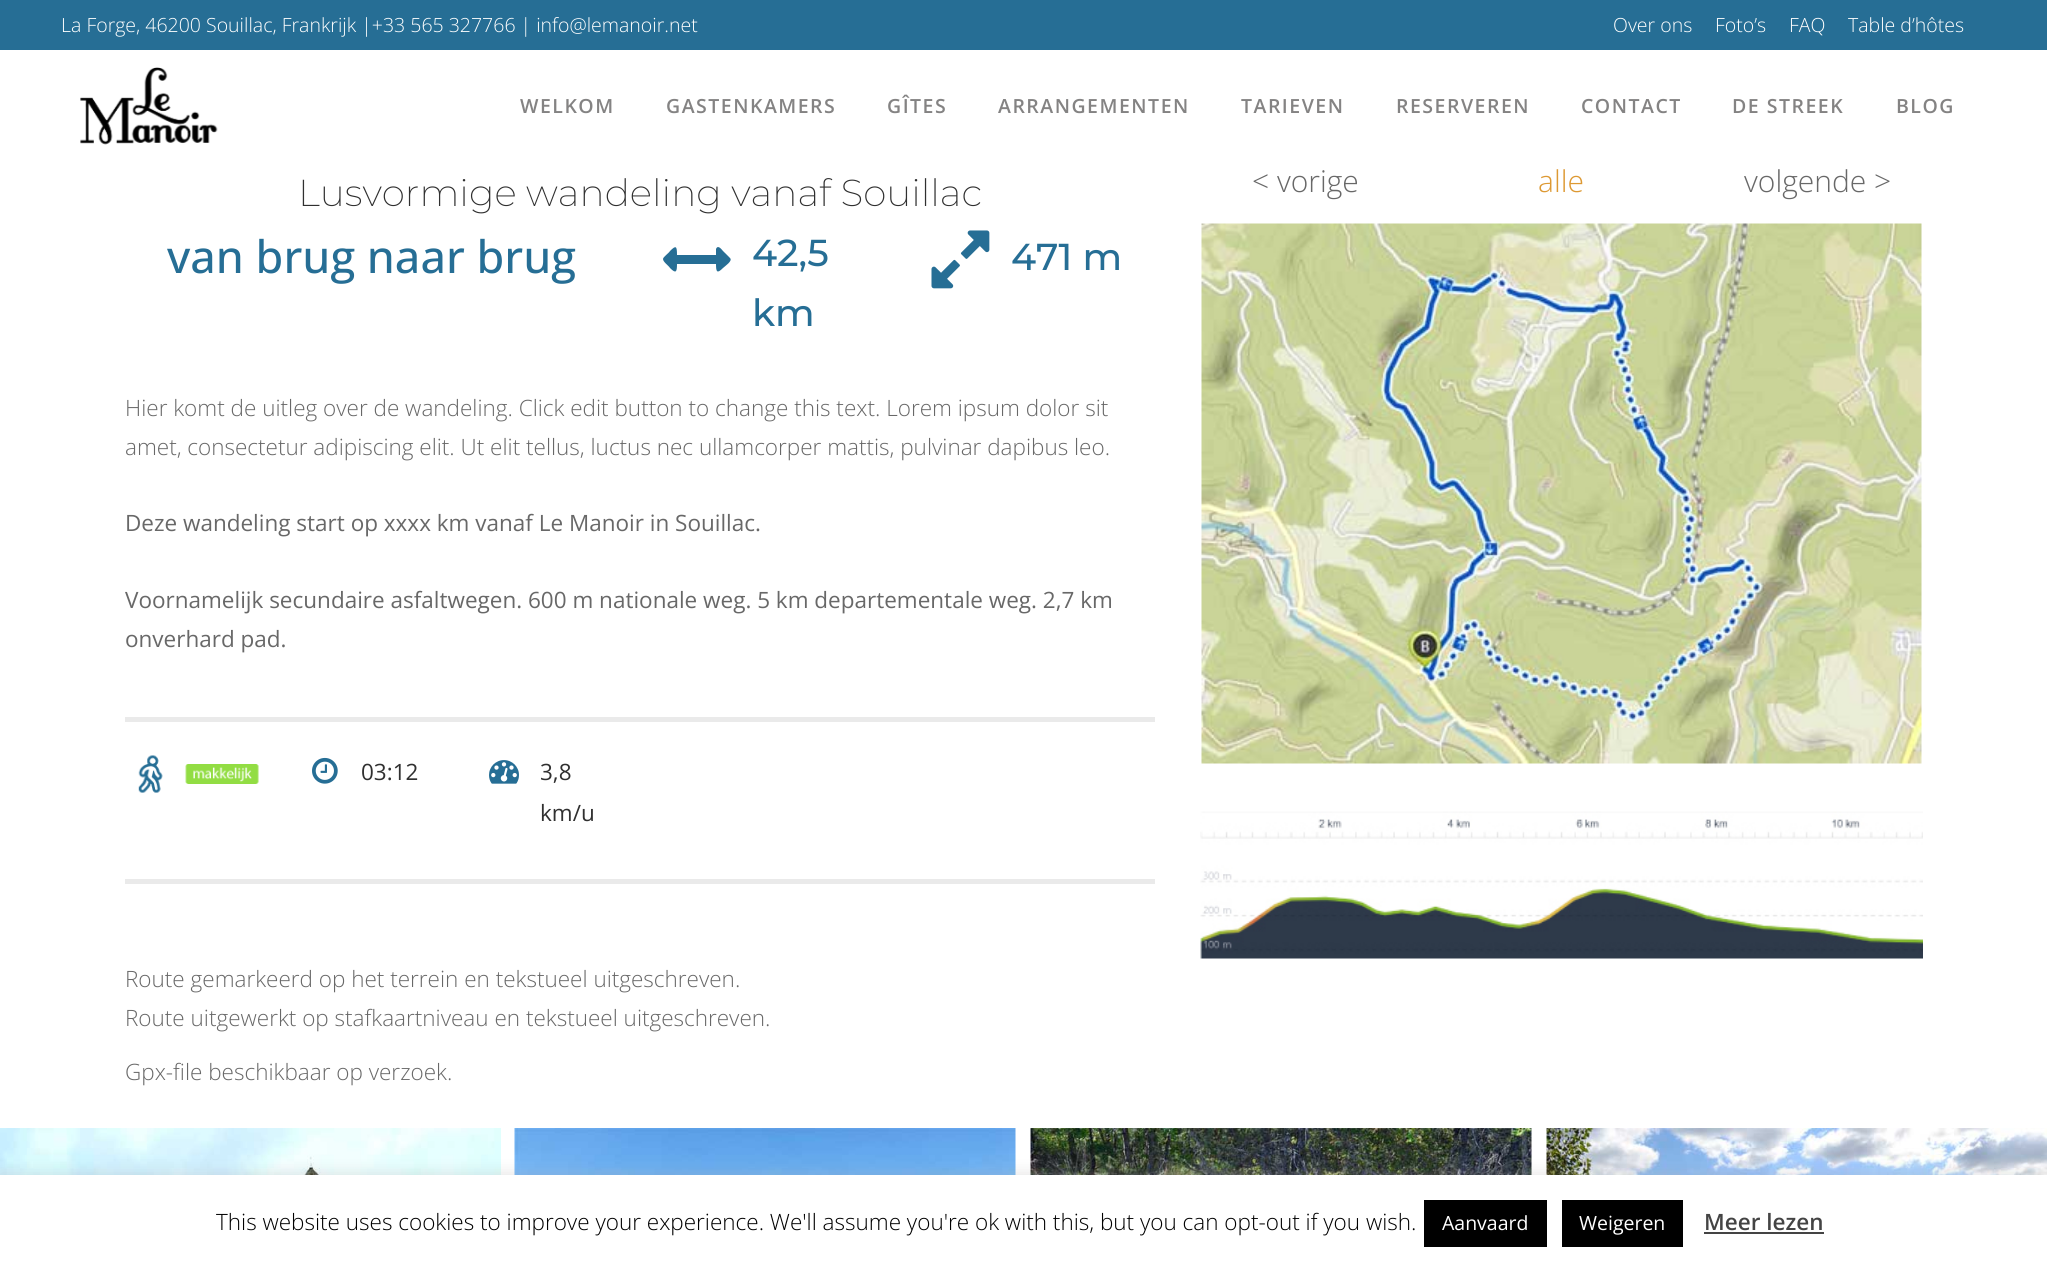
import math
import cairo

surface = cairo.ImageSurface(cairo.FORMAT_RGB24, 2047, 1271)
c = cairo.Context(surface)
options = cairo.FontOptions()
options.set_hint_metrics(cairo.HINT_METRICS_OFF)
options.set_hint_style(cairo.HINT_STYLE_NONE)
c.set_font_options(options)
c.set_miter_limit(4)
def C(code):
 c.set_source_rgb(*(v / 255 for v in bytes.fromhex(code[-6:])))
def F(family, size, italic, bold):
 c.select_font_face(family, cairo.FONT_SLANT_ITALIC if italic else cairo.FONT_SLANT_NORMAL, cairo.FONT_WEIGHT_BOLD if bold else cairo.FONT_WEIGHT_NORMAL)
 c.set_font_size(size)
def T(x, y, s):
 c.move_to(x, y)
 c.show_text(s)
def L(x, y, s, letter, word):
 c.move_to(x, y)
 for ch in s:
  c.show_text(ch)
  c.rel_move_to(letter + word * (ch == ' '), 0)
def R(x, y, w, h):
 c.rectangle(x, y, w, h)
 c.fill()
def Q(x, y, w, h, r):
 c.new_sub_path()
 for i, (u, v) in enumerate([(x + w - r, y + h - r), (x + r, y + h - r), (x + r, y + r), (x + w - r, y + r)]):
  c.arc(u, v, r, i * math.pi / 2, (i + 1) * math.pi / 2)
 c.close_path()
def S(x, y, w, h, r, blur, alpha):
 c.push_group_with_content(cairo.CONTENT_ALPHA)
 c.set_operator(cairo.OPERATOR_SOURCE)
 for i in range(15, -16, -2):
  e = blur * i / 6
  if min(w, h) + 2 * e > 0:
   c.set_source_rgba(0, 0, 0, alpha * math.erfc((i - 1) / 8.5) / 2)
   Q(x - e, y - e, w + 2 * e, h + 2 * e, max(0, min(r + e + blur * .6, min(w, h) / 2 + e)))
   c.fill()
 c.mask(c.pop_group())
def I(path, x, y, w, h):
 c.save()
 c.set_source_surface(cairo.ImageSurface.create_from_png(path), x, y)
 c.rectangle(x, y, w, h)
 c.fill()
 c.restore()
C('ffffff')
c.paint()
C('266e95')
R(0,0,2047,50)
F('Open Sans Light',19.5,0,0)
C('ffffff')
T(61,32,'La Forge, 46200 Souillac, Frankrijk |+33 565 327766 | info@lemanoir.net')
T(1613,32,'Over ons')
T(1715,32,'Foto’s')
T(1789,32,'FAQ')
T(1848,32,'Table d’hôtes')
I('1.png',80,67,138,78)
F('Open Sans SemiBold',19.5,0,0)
C('848383')
L(520,113,'WELKOM',1.5,0)
L(666,113,'GASTENKAMERS',1.5,0)
L(887,113,'GÎTES',1.5,0)
L(998,113,'ARRANGEMENTEN',1.5,0)
L(1241,113,'TARIEVEN',1.5,0)
L(1396,113,'RESERVEREN',1.5,0)
L(1581,113,'CONTACT',1.5,0)
L(1732,113,'DE STREEK',1.5,0)
L(1896,113,'BLOG',1.5,0)
F('Montserrat ExtraLight',37.5,0,0)
C('303030')
T(298,206,'Lusvormige wandeling vanaf Souillac')
F('Open Sans Medium',45,0,0)
C('266e95')
T(167,273,'van brug naar brug')
c.new_path()
c.move_to(730,258)
c.curve_to(733,261,725,266,723,268)
c.curve_to(717,274,716,272,716,264)
c.line_to(677,264)
c.curve_to(677,272,676,274,670,268)
c.curve_to(669,266,663,262,663,259)
c.curve_to(663,257,669,253,670,251)
c.curve_to(676,245,677,246,677,255)
c.line_to(716,255)
c.line_to(716,249)
c.curve_to(718,244,722,250,723,251)
c.close_path()
c.fill()
F('Montserrat Medium',37.5,0,0)
T(752,266,'42,5')
T(752,326,'km')
I('2.png',931,230,59,59)
T(1011,270,'471 m')
F('Open Sans Light',22.5,0,0)
C('686868')
T(125,416,'Hier komt de uitleg over de wandeling. Click edit button to change this text. Lorem ipsum dolor sit')
T(125,455,'amet, consectetur adipiscing elit. Ut elit tellus, luctus nec ullamcorper mattis, pulvinar dapibus leo.')
F('Open Sans',22.5,0,0)
T(125,531,'Deze wandeling start op xxxx km vanaf Le Manoir in Souillac.')
T(125,608,'Voornamelijk secundaire asfaltwegen. 600 m nationale weg. 5 km departementale weg. 2,7 km')
T(125,647,'onverhard pad.')
C('eaeaea')
R(125,717,1030,5)
I('3.png',138,755,121,38)
I('4.png',312,757,26,27)
C('303030')
T(361,780,'03:12')
I('5.png',489,760,30,24)
T(540,780,'3,8')
T(540,821,'km/u')
C('eaeaea')
R(125,879,1030,5)
F('Open Sans Light',22.5,0,0)
C('686868')
T(125,987,'Route gemarkeerd op het terrein en tekstueel uitgeschreven.')
T(125,1026,'Route uitgewerkt op stafkaartniveau en tekstueel uitgeschreven.')
T(125,1080,'Gpx-file beschikbaar op verzoek.')
F('Open Sans Light',30,0,0)
T(1252,192,'< vorige')
C('dd9933')
T(1538,192,'alle')
C('686868')
T(1744,192,'volgende >')
I('6.png',1201,223,721,541)
I('7.png',1200,811,723,148)
I('8.png',0,1128,501,47)
I('9.png',514,1128,502,47)
I('10.png',1030,1128,502,47)
I('11.png',1546,1128,501,47)
C('acabab')
S(0,1173,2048,98,0,7.5,.3)
C('ffffff')
R(0,1175,2047,96)
F('Open Sans Light',22.5,0,0)
C('000000')
T(216,1230,'This website uses cookies to improve your experience. We\'ll assume you\'re ok with this, but you can opt-out if you wish.')
R(1424,1200,123,47)
F('Open Sans',19.5,0,0)
C('ffffff')
T(1442,1230,'Aanvaard')
C('000000')
R(1562,1200,121,47)
C('ffffff')
T(1579,1230,'Weigeren')
F('Open Sans SemiBold',22.5,0,0)
C('444444')
T(1704,1230,'Meer lezen')
R(1704,1232,120,2)
surface.write_to_png('o.png')
